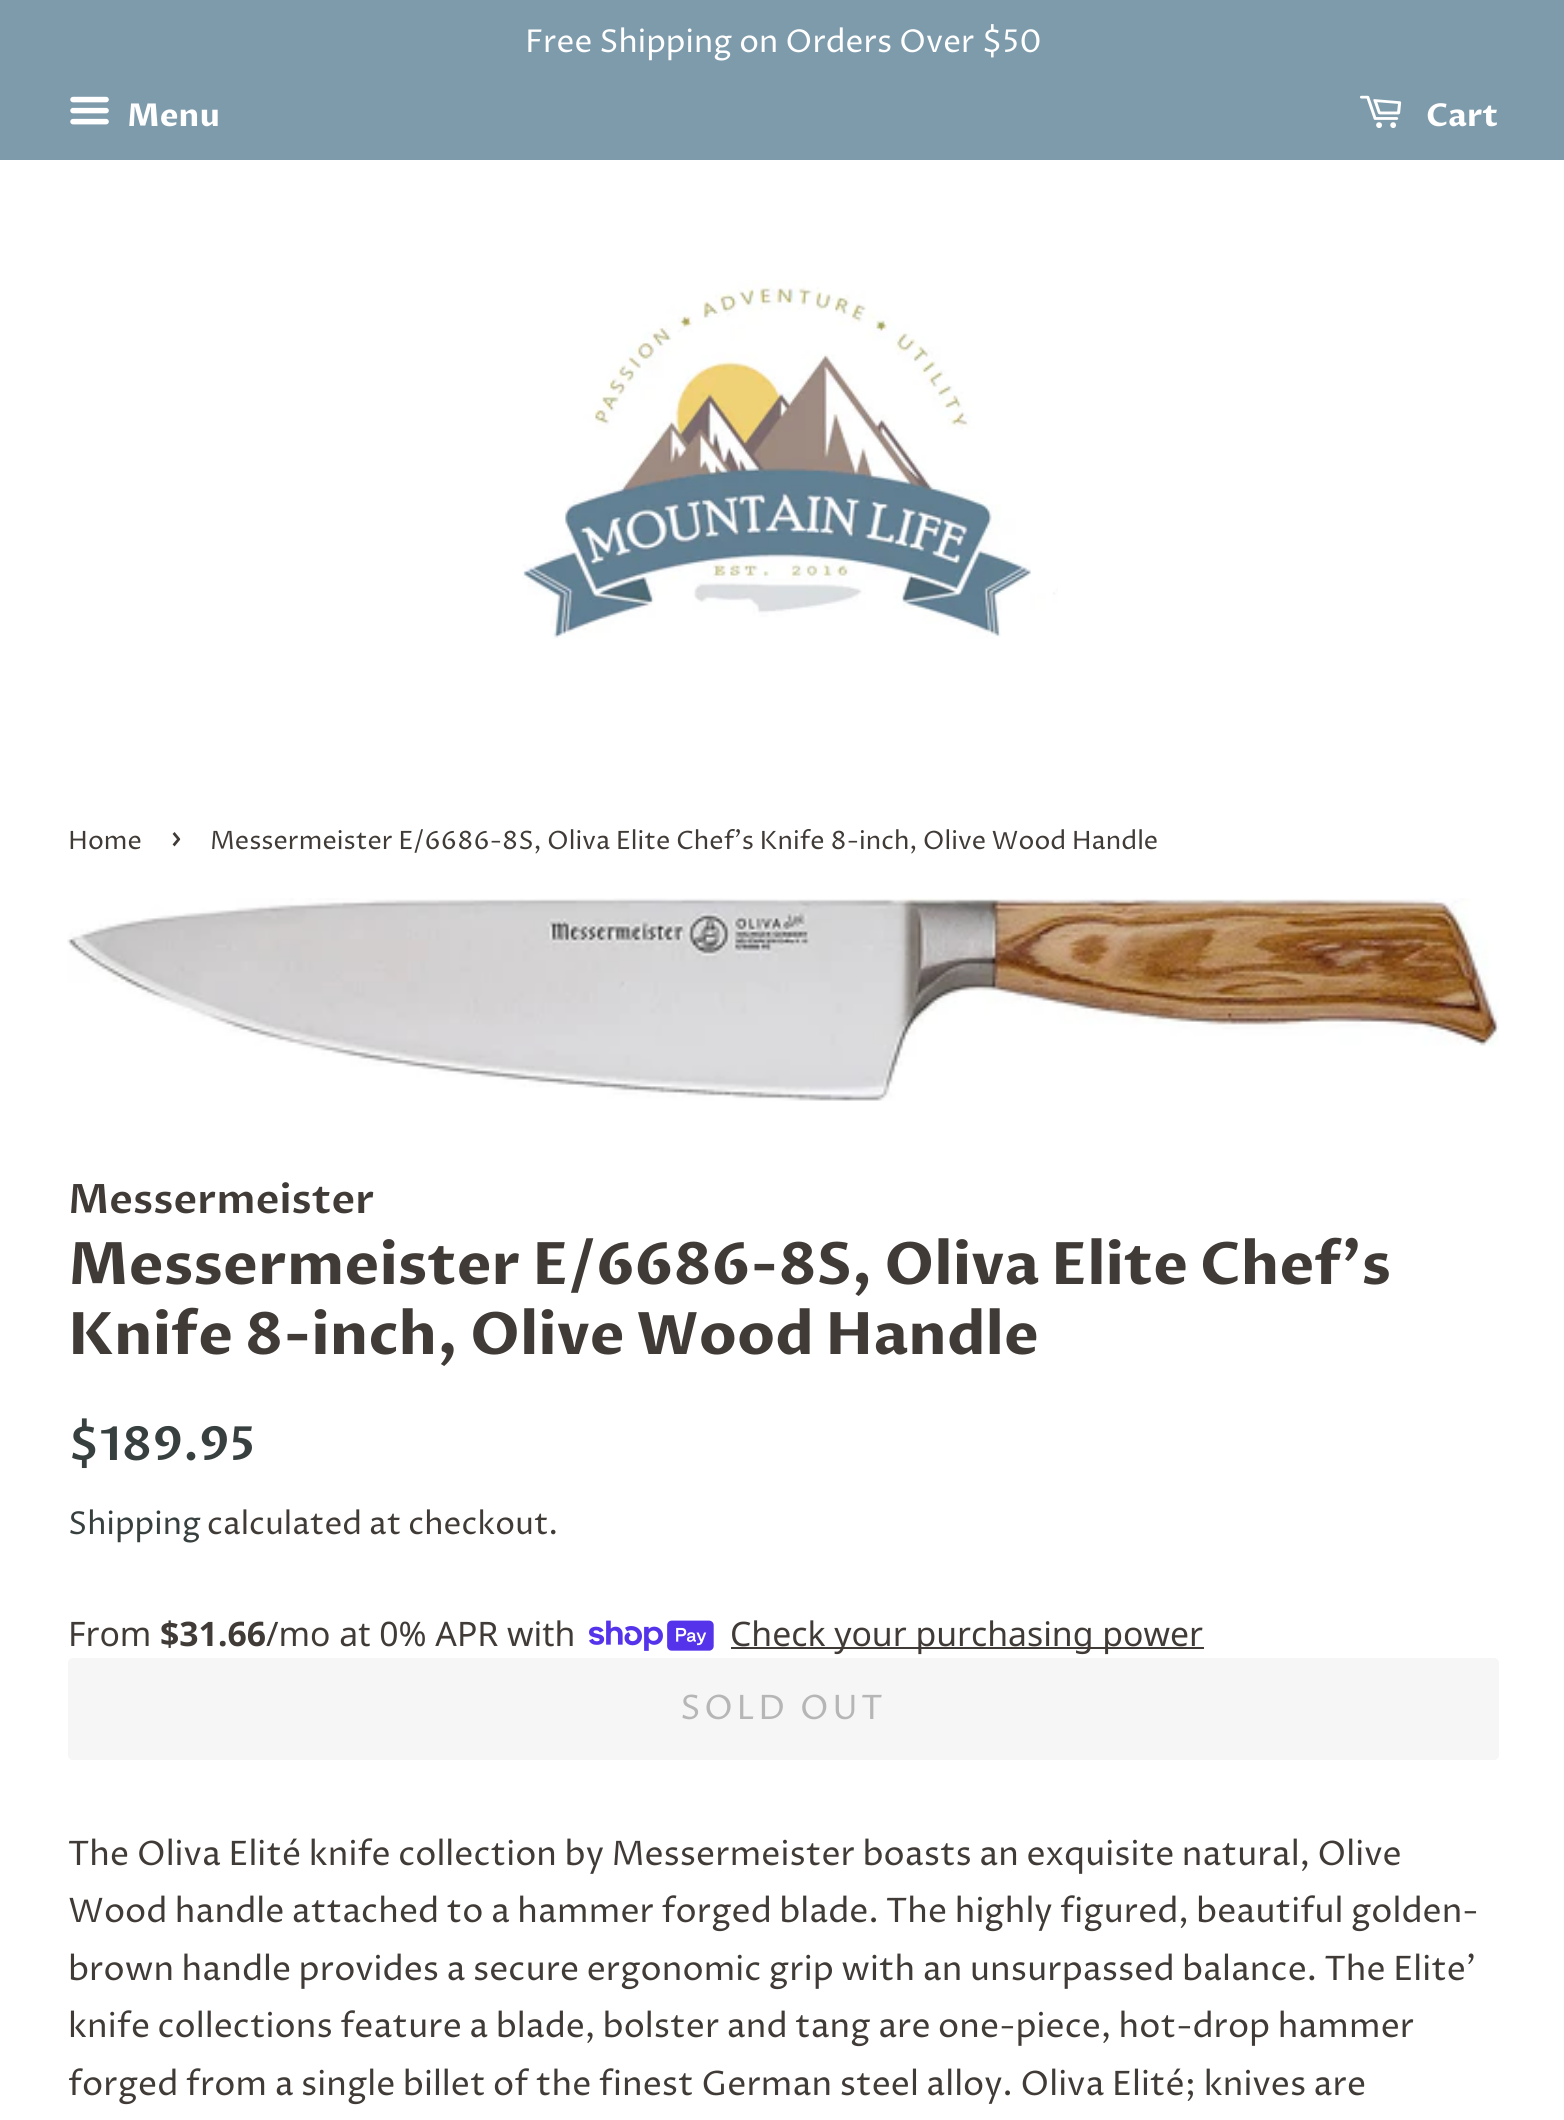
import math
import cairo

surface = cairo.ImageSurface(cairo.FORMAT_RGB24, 1564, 2120)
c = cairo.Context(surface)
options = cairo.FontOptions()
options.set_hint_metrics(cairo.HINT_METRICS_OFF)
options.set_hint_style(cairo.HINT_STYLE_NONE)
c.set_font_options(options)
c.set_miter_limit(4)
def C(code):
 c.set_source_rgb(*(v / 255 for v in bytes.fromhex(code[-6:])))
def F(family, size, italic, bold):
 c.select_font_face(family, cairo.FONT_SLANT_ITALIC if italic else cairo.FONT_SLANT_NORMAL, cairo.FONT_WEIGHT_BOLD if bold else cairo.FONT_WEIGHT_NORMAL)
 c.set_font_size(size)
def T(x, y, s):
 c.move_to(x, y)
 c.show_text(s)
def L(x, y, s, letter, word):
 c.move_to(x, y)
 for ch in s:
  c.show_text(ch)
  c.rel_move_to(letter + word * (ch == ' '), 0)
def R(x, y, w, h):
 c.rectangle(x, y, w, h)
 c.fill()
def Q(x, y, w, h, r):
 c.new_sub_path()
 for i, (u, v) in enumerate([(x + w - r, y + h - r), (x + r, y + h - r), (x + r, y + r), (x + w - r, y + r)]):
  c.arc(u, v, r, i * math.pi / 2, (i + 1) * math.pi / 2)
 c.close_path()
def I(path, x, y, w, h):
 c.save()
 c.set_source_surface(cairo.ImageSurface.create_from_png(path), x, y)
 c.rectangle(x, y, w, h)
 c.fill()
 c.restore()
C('ffffff')
c.paint()
C('7e9bac')
R(0,0,1564,160)
F('Proza Libre',31.5,0,0)
C('ffffff')
T(525,52,'Free Shipping on Orders Over $50')
I('1.png',70,96,39,29)
F('Proza Libre',31.5,0,1)
T(127,126,'Menu')
I('2.png',1360,95,42,33)
T(1426,126,'Cart')
I('3.png',522,280,536,359)
F('Proza Libre',25.3,0,0)
C('403b37')
T(68,849,'Home')
F('Proza Libre',35,0,0)
T(170,849,'›')
F('Proza Libre',25.3,0,0)
T(210,849,'Messermeister E/6686-8S, Oliva Elite Chef’s Knife 8-inch, Olive Wood Handle')
I('4.png',67,898,1432,203)
F('Proza Libre SemiBold',40.5,0,0)
T(68,1213,'Messermeister')
F('Proza Libre',58.5,0,1)
T(68,1284,'Messermeister E/6686-8S, Oliva Elite Chef’s')
T(68,1354,'Knife 8-inch, Olive Wood Handle')
F('Proza Libre SemiBold',47,0,0)
C('37403f')
T(68,1460,'$189.95')
F('Proza Libre',31.5,0,0)
T(68,1534,'Shipping')
C('403b37')
T(207,1534,'calculated at checkout.')
F('Noto Sans',33.75,0,0)
T(68,1646,'From')
F('Noto Sans',33.75,0,1)
T(160,1646,'$31.66')
F('Noto Sans',33.75,0,0)
T(266,1646,'/mo at 0% APR with')
I('5.png',589,1620,125,31)
R(731,1647,473,2)
T(730,1646,'Check your purchasing power')
C('f6f6f6')
Q(68,1658,1431,102,5)
c.fill()
F('Proza Libre',33.75,0,0)
C('b6b6b6')
L(680,1719,'SOLD OUT',3.5,0)
C('403b37')
T(68,1865,'The Oliva Elité knife collection by Messermeister boasts an exquisite natural, Olive')
T(68,1922,'Wood handle attached to a hammer forged blade. The highly figured, beautiful golden-')
T(68,1980,'brown handle provides a secure ergonomic grip with an unsurpassed balance. The Elite’')
T(68,2037,'knife collections feature a blade, bolster and tang are one-piece, hot-drop hammer')
T(68,2095,'forged from a single billet of the finest German steel alloy. Oliva Elité; knives are')
surface.write_to_png('o.png')
